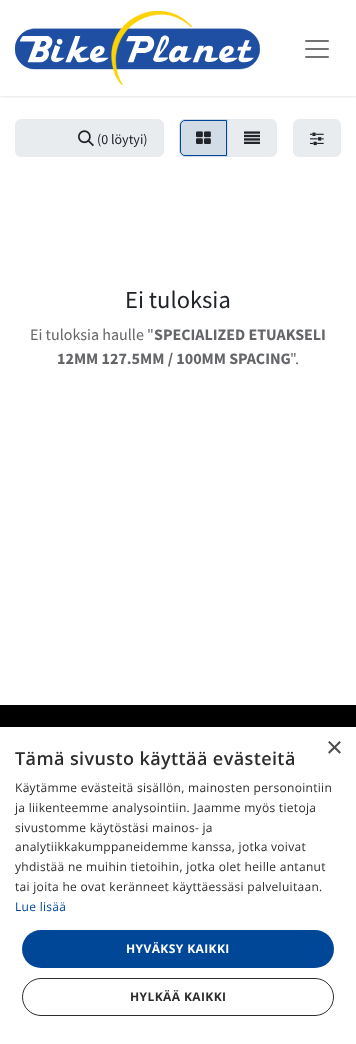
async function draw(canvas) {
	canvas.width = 356;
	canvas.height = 1044;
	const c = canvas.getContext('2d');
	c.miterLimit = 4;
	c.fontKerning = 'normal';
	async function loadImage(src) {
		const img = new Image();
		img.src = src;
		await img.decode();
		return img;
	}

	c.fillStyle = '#fff';
	c.fillRect(0, 0, 356, 1044);
	c.save();
	c.beginPath();
	c.rect(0, 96, 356, 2);
	c.clip();
	c.fillStyle = '#0000001a';
	c.filter = 'blur(1.5px)';
	c.beginPath();
	c.rect(0, 1, 356, 96);
	c.fill();
	c.filter = 'none';
	c.restore();
	c.drawImage(await loadImage('img1.png'), 15, 11, 245, 74);
	c.drawImage(await loadImage('img2.png'), 305, 40, 24, 18);
	c.fillStyle = '#e9ecef';
	c.beginPath();
	c.roundRect(15, 119, 47, 38, [6, 0, 0, 6]);
	c.fill();
	c.beginPath();
	c.roundRect(61.5, 119.5, 102, 37, [0, 5.5, 5.5, 0]);
	c.fill();
	c.strokeStyle = '#e9ecef';
	c.stroke();
	c.drawImage(await loadImage('img3.png'), 78, 130, 16, 17);
	c.font = '14px Source Sans Pro';
	c.fillStyle = '#212529';
	c.fillText('(0 löytyi)', 97, 144);
	c.fillStyle = '#e9ecef';
	c.beginPath();
	c.roundRect(227.5, 119.5, 49, 37, [0, 5.5, 5.5, 0]);
	c.fill();
	c.stroke();
	c.fillStyle = '#d2dce6';
	c.beginPath();
	c.roundRect(179, 119, 49, 38, [6, 0, 0, 6]);
	c.fill();
	c.beginPath();
	c.roundRect(180.5, 120.5, 46, 35, [4.5, 0, 0, 4.5]);
	c.strokeStyle = '#004798';
	c.stroke();
	c.drawImage(await loadImage('img4.png'), 196, 131, 15, 13);
	c.drawImage(await loadImage('img5.png'), 244, 131, 16, 13);
	c.fillStyle = '#e9ecef';
	c.beginPath();
	c.roundRect(293.5, 119.5, 47, 37, 5.5);
	c.fill();
	c.strokeStyle = '#e9ecef';
	c.stroke();
	c.drawImage(await loadImage('img6.png'), 310, 132, 14, 14);
	c.font = '24.5px Source Sans Pro';
	c.fillStyle = '#212529';
	c.fillText('Ei tuloksia', 125, 308);
	c.font = '16px Source Sans Pro';
	c.fillStyle = '#646669';
	c.fillText('Ei tuloksia haulle "', 30, 340);
	c.font = 'bold 16px Source Sans Pro';
	c.fillText('SPECIALIZED ETUAKSELI', 154, 340);
	c.fillText('12MM 127.5MM / 100MM SPACING', 57, 364);
	c.font = '16px Source Sans Pro';
	c.fillText('".', 290, 364);
	c.fillStyle = '#000';
	c.fillRect(0, 705, 356, 22);
	c.font = '29px Liberation Sans';
	c.fillStyle = '#4d4d4d';
	c.fillText('×', 326, 757);
	c.letterSpacing = '0.4px';
	c.font = '600 18px Open Sans';
	c.fillStyle = '#2d2d2d';
	c.fillText('Tämä sivusto käyttää evästeitä', 15, 765);
	c.letterSpacing = '0.3px';
	c.font = '12px Open Sans';
	for (const [text, x, y] of [
		['Käytämme evästeitä sisällön, mainosten personointiin', 15, 792],
		['ja liikenteemme analysointiin. Jaamme myös tietoja', 15, 812],
		['sivustomme käytöstäsi mainos- ja', 15, 832],
		['analytiikkakumppaneidemme kanssa, jotka voivat', 15, 851],
		['yhdistää ne muihin tietoihin, jotka olet heille antanut', 15, 871],
		['tai joita he ovat keränneet käyttäessäsi palveluitaan.', 15, 891],
	]) {
		c.fillText(text, x, y);
	}
	c.fillStyle = '#004798';
	c.fillText('Lue lisää', 15, 911);
	c.beginPath();
	c.roundRect(22, 930, 312, 38, 19);
	c.fill();
	c.letterSpacing = '0.4px';
	c.font = 'bold 12px Open Sans';
	c.fillStyle = '#fff';
	c.fillText('HYVÄKSY KAIKKI', 126, 953);
	c.beginPath();
	c.roundRect(22.5, 978.5, 311, 37, 18.5);
	c.strokeStyle = '#2d2d2d';
	c.stroke();
	c.fillStyle = '#2d2d2d';
	c.fillText('HYLKÄÄ KAIKKI', 130, 1001);
}

draw(document.querySelector('canvas'));
